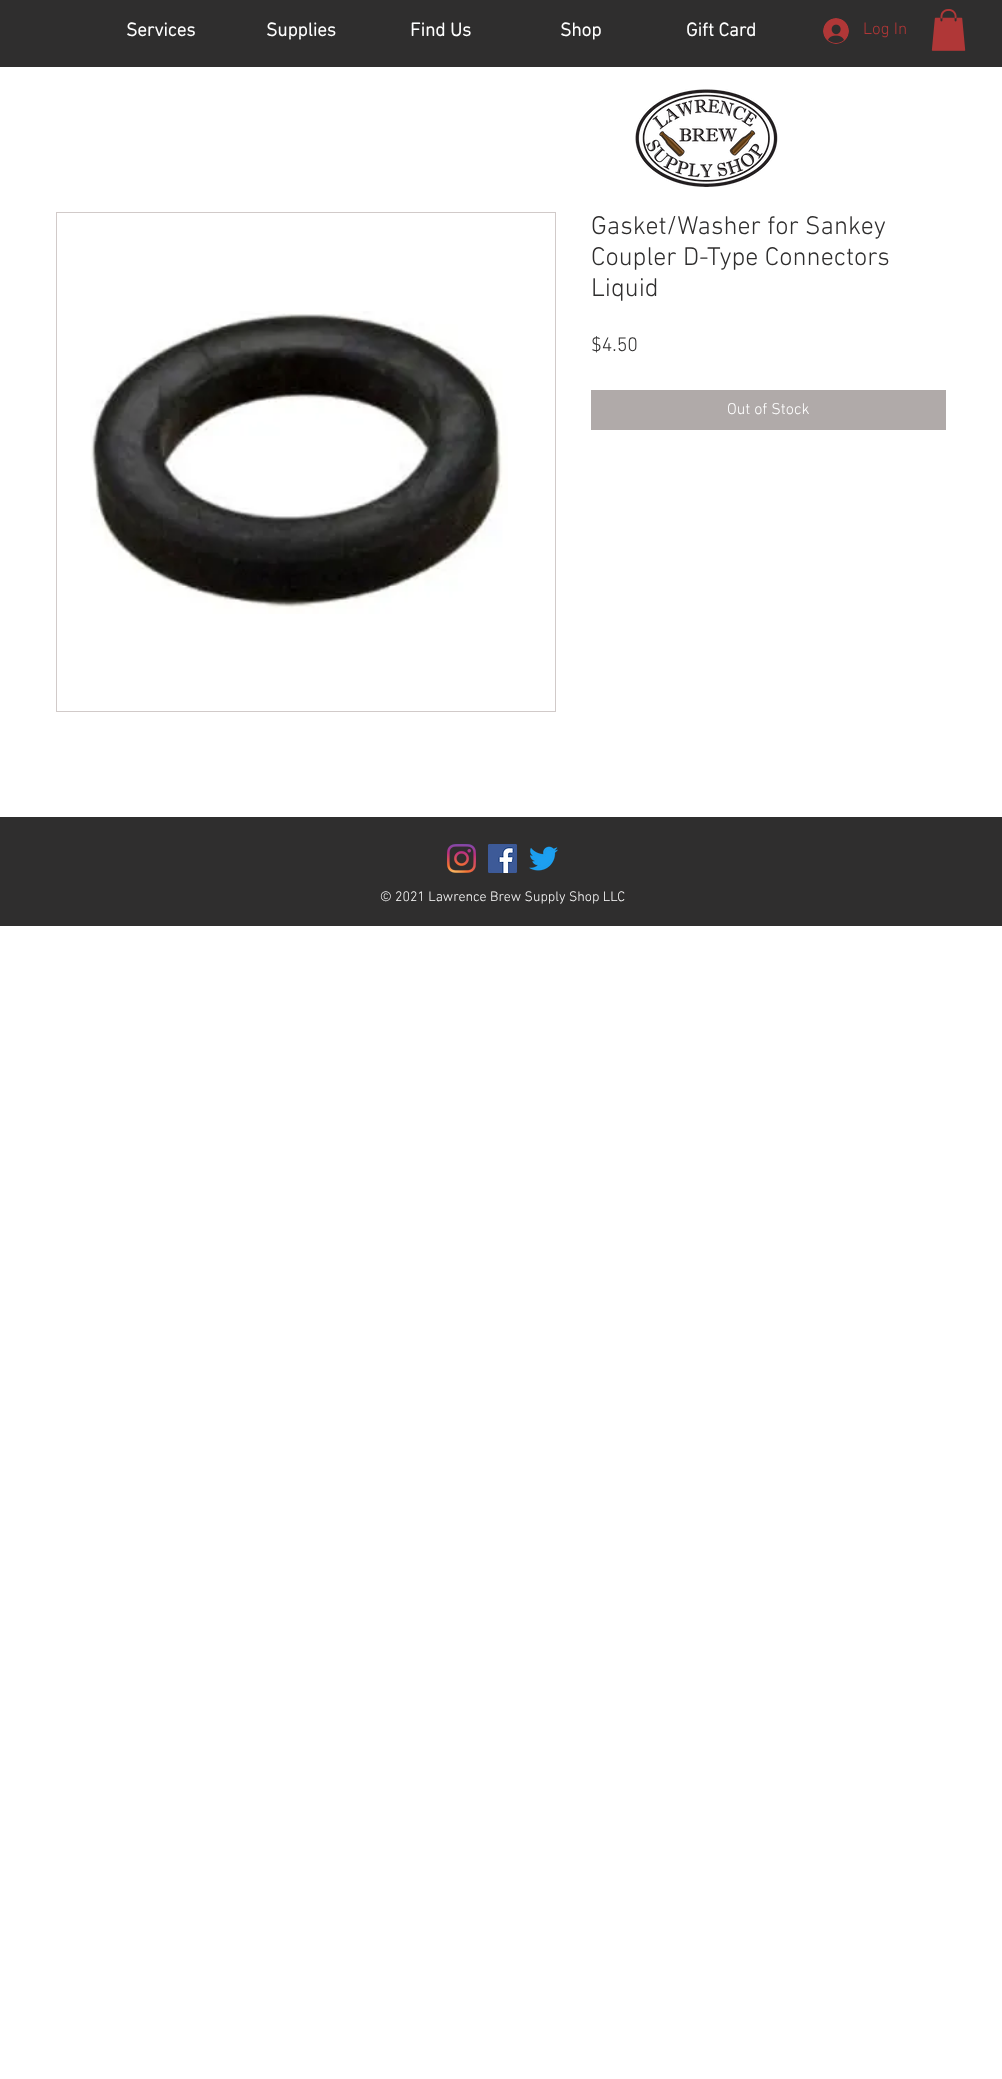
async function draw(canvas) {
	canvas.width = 1002;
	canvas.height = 2079;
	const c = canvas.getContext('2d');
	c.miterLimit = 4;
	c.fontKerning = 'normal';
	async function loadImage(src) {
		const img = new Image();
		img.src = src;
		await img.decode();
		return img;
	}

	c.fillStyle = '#fff';
	c.fillRect(0, 0, 1002, 2079);
	c.fillStyle = '#2f2e2e';
	c.fillRect(0, 0, 1002, 67);
	c.font = 'bold 19px "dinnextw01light"';
	c.fillStyle = '#fff';
	for (const [text, x, y] of [
		['Services', 126, 36],
		['Supplies', 266, 36],
		['Find Us', 410, 36],
		['Shop', 560, 36],
		['Gift Card', 686, 36],
	]) {
		c.fillText(text, x, y);
	}
	c.drawImage(await loadImage('img1.png'), 823, 18, 26, 26);
	c.font = '300 17px "dinnextw01light"';
	c.fillStyle = '#b03737';
	c.fillText('Log In', 863, 34);
	c.drawImage(await loadImage('img2.png'), 931, 9, 35, 42);
	c.drawImage(await loadImage('img3.png'), 635, 89, 143, 98);
	c.strokeStyle = '#d1cac9';
	c.strokeRect(56.5, 212.5, 499, 499);
	c.drawImage(await loadImage('img4.png'), 90, 311, 418, 303);
	c.font = '300 26px "dinnextw01light"';
	c.fillStyle = '#2f2e2e';
	for (const [text, x, y] of [
		['Gasket/Washer for Sankey', 591, 234],
		['Coupler D-Type Connectors', 591, 265],
		['Liquid', 591, 296],
	]) {
		c.fillText(text, x, y);
	}
	c.font = '300 20px "dinnextw01light"';
	c.fillText('$4.50', 591, 351);
	c.fillStyle = '#b0aaa9';
	c.fillRect(591, 390, 355, 40);
	c.font = '300 16px "dinnextw01light"';
	c.fillStyle = '#fff';
	c.fillText('Out of Stock', 727, 414);
	c.fillStyle = '#2f2e2e';
	c.fillRect(0, 817, 1002, 109);
	c.drawImage(await loadImage('img5.png'), 447, 844, 29, 29);
	c.drawImage(await loadImage('img6.png'), 488, 844, 29, 29);
	c.drawImage(await loadImage('img7.png'), 529, 846, 29, 25);
	c.font = '300 14px "dinnextw01light"';
	c.fillStyle = '#fff';
	c.fillText('© 2021 Lawrence Brew Supply Shop LLC', 380, 901);
}

draw(document.querySelector('canvas'));
